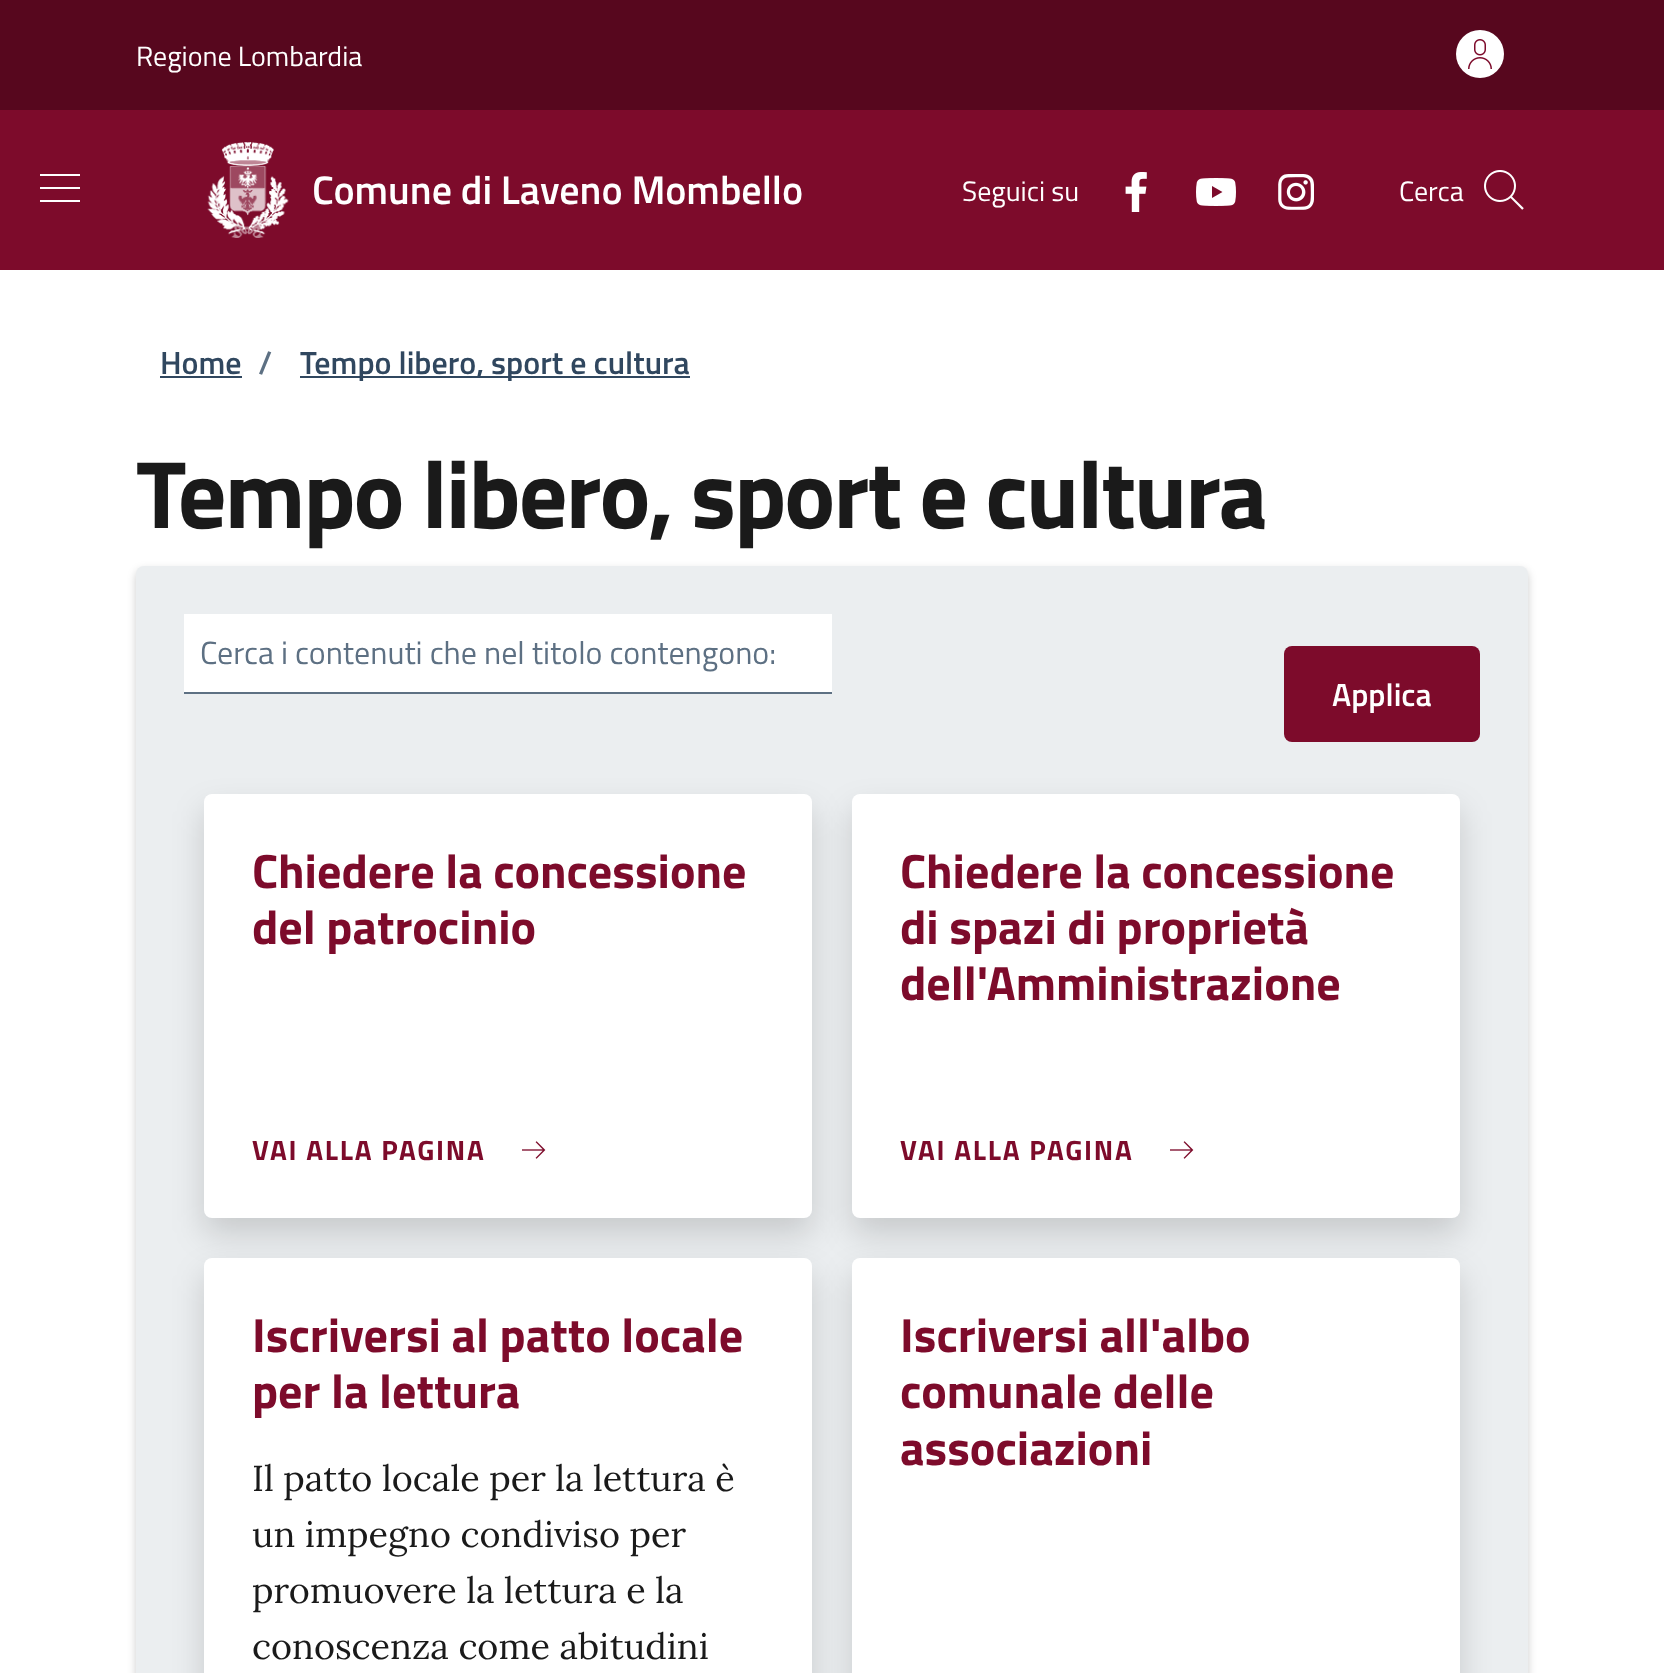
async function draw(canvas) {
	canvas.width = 1664;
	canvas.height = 1673;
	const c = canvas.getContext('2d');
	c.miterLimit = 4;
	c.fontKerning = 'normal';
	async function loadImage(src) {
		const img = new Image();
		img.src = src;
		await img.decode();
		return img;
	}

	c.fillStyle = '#fff';
	c.fillRect(0, 0, 1664, 1673);
	c.fillStyle = '#57071e';
	c.fillRect(0, 0, 1664, 110);
	c.font = '28px Titillium Web';
	c.fillStyle = '#fff';
	c.fillText('Regione Lombardia', 136, 66);
	c.beginPath();
	c.arc(1480, 54, 24, 0, 2 * Math.PI);
	c.fill();
	c.drawImage(await loadImage('img1.png'), 1468, 39, 24, 30);
	c.fillStyle = '#7d0b2b';
	c.fillRect(0, 110, 1664, 160);
	c.fillStyle = '#fff';
	c.beginPath();
	c.moveTo(80, 174);
	c.lineTo(80, 176);
	c.lineTo(40, 176);
	c.lineTo(40, 174);
	c.closePath();
	c.moveTo(40, 189);
	c.lineTo(80, 189);
	c.lineTo(80, 187);
	c.lineTo(40, 187);
	c.closePath();
	c.moveTo(40, 202);
	c.lineTo(80, 202);
	c.lineTo(80, 200);
	c.lineTo(40, 200);
	c.closePath();
	c.fill();
	c.drawImage(await loadImage('img2.png'), 207, 142, 82, 96);
	c.font = '600 40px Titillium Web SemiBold';
	c.fillText('Comune di Laveno Mombello', 312, 204);
	c.font = '28px Titillium Web';
	c.fillText('Seguici su', 962, 201);
	c.drawImage(await loadImage('img3.png'), 1125, 172, 22, 40);
	c.drawImage(await loadImage('img4.png'), 1196, 178, 40, 28);
	c.drawImage(await loadImage('img5.png'), 1278, 174, 36, 36);
	c.fillText('Cerca', 1399, 201);
	c.drawImage(await loadImage('img6.png'), 1484, 170, 40, 40);
	c.font = '600 32px Titillium Web SemiBold';
	c.fillStyle = '#30475f';
	c.fillText('Home', 160, 374);
	c.fillRect(160, 376, 82, 2);
	c.fillStyle = '#5d7083';
	c.fillText('/', 258, 374);
	c.fillStyle = '#30475f';
	c.fillRect(300, 376, 390, 2);
	c.fillText('Tempo libero, sport e cultura', 300, 374);
	c.letterSpacing = '-2px';
	c.font = 'bold 96px Titillium Web';
	c.fillStyle = '#1a1a1a';
	c.fillText('Tempo libero, sport e cultura', 136, 528);
	c.fillStyle = '#00000033';
	c.filter = 'blur(4px)';
	c.beginPath();
	c.roundRect(136, 570, 1392, 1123, 8);
	c.fill();
	c.filter = 'none';
	c.fillStyle = '#ebeef0';
	c.beginPath();
	c.roundRect(136, 566, 1392, 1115, 8);
	c.fill();
	c.fillStyle = '#fff';
	c.fillRect(184, 614, 648, 78);
	c.fillStyle = '#5d7083';
	c.fillRect(184, 692, 648, 2);
	c.letterSpacing = '0px';
	c.font = '32px Titillium Web';
	c.fillText('Cerca i contenuti che nel titolo contengono:', 200, 664);
	c.fillStyle = '#7d0b2b';
	c.beginPath();
	c.roundRect(1284, 646, 196, 96, 8);
	c.fill();
	c.font = '600 32px Titillium Web SemiBold';
	c.fillStyle = '#fff';
	c.fillText('Applica', 1332, 706);
	c.fillStyle = '#00000026';
	c.filter = 'blur(16px)';
	c.beginPath();
	c.roundRect(204, 810, 608, 424, 8);
	c.fill();
	c.filter = 'none';
	c.fillStyle = '#fff';
	c.beginPath();
	c.roundRect(204, 794, 608, 424, 8);
	c.fill();
	c.font = 'bold 48px Titillium Web';
	c.fillStyle = '#7d0b2b';
	c.fillText('Chiedere la concessione', 252, 888);
	c.fillText('del patrocinio', 252, 944);
	c.letterSpacing = '1.75px';
	c.font = 'bold 28px Titillium Web';
	c.fillText('VAI ALLA PAGINA', 252, 1160);
	c.drawImage(await loadImage('img7.png'), 522, 1141, 24, 18);
	c.fillStyle = '#00000026';
	c.filter = 'blur(16px)';
	c.beginPath();
	c.roundRect(852, 810, 608, 424, 8);
	c.fill();
	c.filter = 'none';
	c.fillStyle = '#fff';
	c.beginPath();
	c.roundRect(852, 794, 608, 424, 8);
	c.fill();
	c.letterSpacing = '0px';
	c.font = 'bold 48px Titillium Web';
	c.fillStyle = '#7d0b2b';
	for (const [text, x, y] of [
		['Chiedere la concessione', 900, 888],
		['di spazi di proprietà', 900, 944],
		['dell\'Amministrazione', 900, 1000],
	]) {
		c.fillText(text, x, y);
	}
	c.letterSpacing = '1.75px';
	c.font = 'bold 28px Titillium Web';
	c.fillText('VAI ALLA PAGINA', 900, 1160);
	c.drawImage(await loadImage('img7.png'), 1170, 1141, 24, 18);
	c.fillStyle = '#00000026';
	c.filter = 'blur(16px)';
	c.beginPath();
	c.roundRect(204, 1274, 608, 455, 8);
	c.fill();
	c.filter = 'none';
	c.fillStyle = '#fff';
	c.beginPath();
	c.roundRect(204, 1258, 608, 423, 8);
	c.fill();
	c.letterSpacing = '0px';
	c.font = 'bold 48px Titillium Web';
	c.fillStyle = '#7d0b2b';
	c.fillText('Iscriversi al patto locale', 252, 1352);
	c.fillText('per la lettura', 252, 1408);
	c.font = '36px Lora';
	c.fillStyle = '#1a1a1a';
	for (const [text, x, y] of [
		['Il patto locale per la lettura è', 252, 1491],
		['un impegno condiviso per', 252, 1547],
		['promuovere la lettura e la', 252, 1603],
		['conoscenza come abitudini', 252, 1659],
	]) {
		c.fillText(text, x, y);
	}
	c.fillStyle = '#00000026';
	c.filter = 'blur(16px)';
	c.beginPath();
	c.roundRect(852, 1274, 608, 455, 8);
	c.fill();
	c.filter = 'none';
	c.fillStyle = '#fff';
	c.beginPath();
	c.roundRect(852, 1258, 608, 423, 8);
	c.fill();
	c.font = 'bold 48px Titillium Web';
	c.fillStyle = '#7d0b2b';
	for (const [text, x, y] of [
		['Iscriversi all\'albo', 900, 1352],
		['comunale delle', 900, 1408],
		['associazioni', 900, 1465],
	]) {
		c.fillText(text, x, y);
	}
}

draw(document.querySelector('canvas'));
